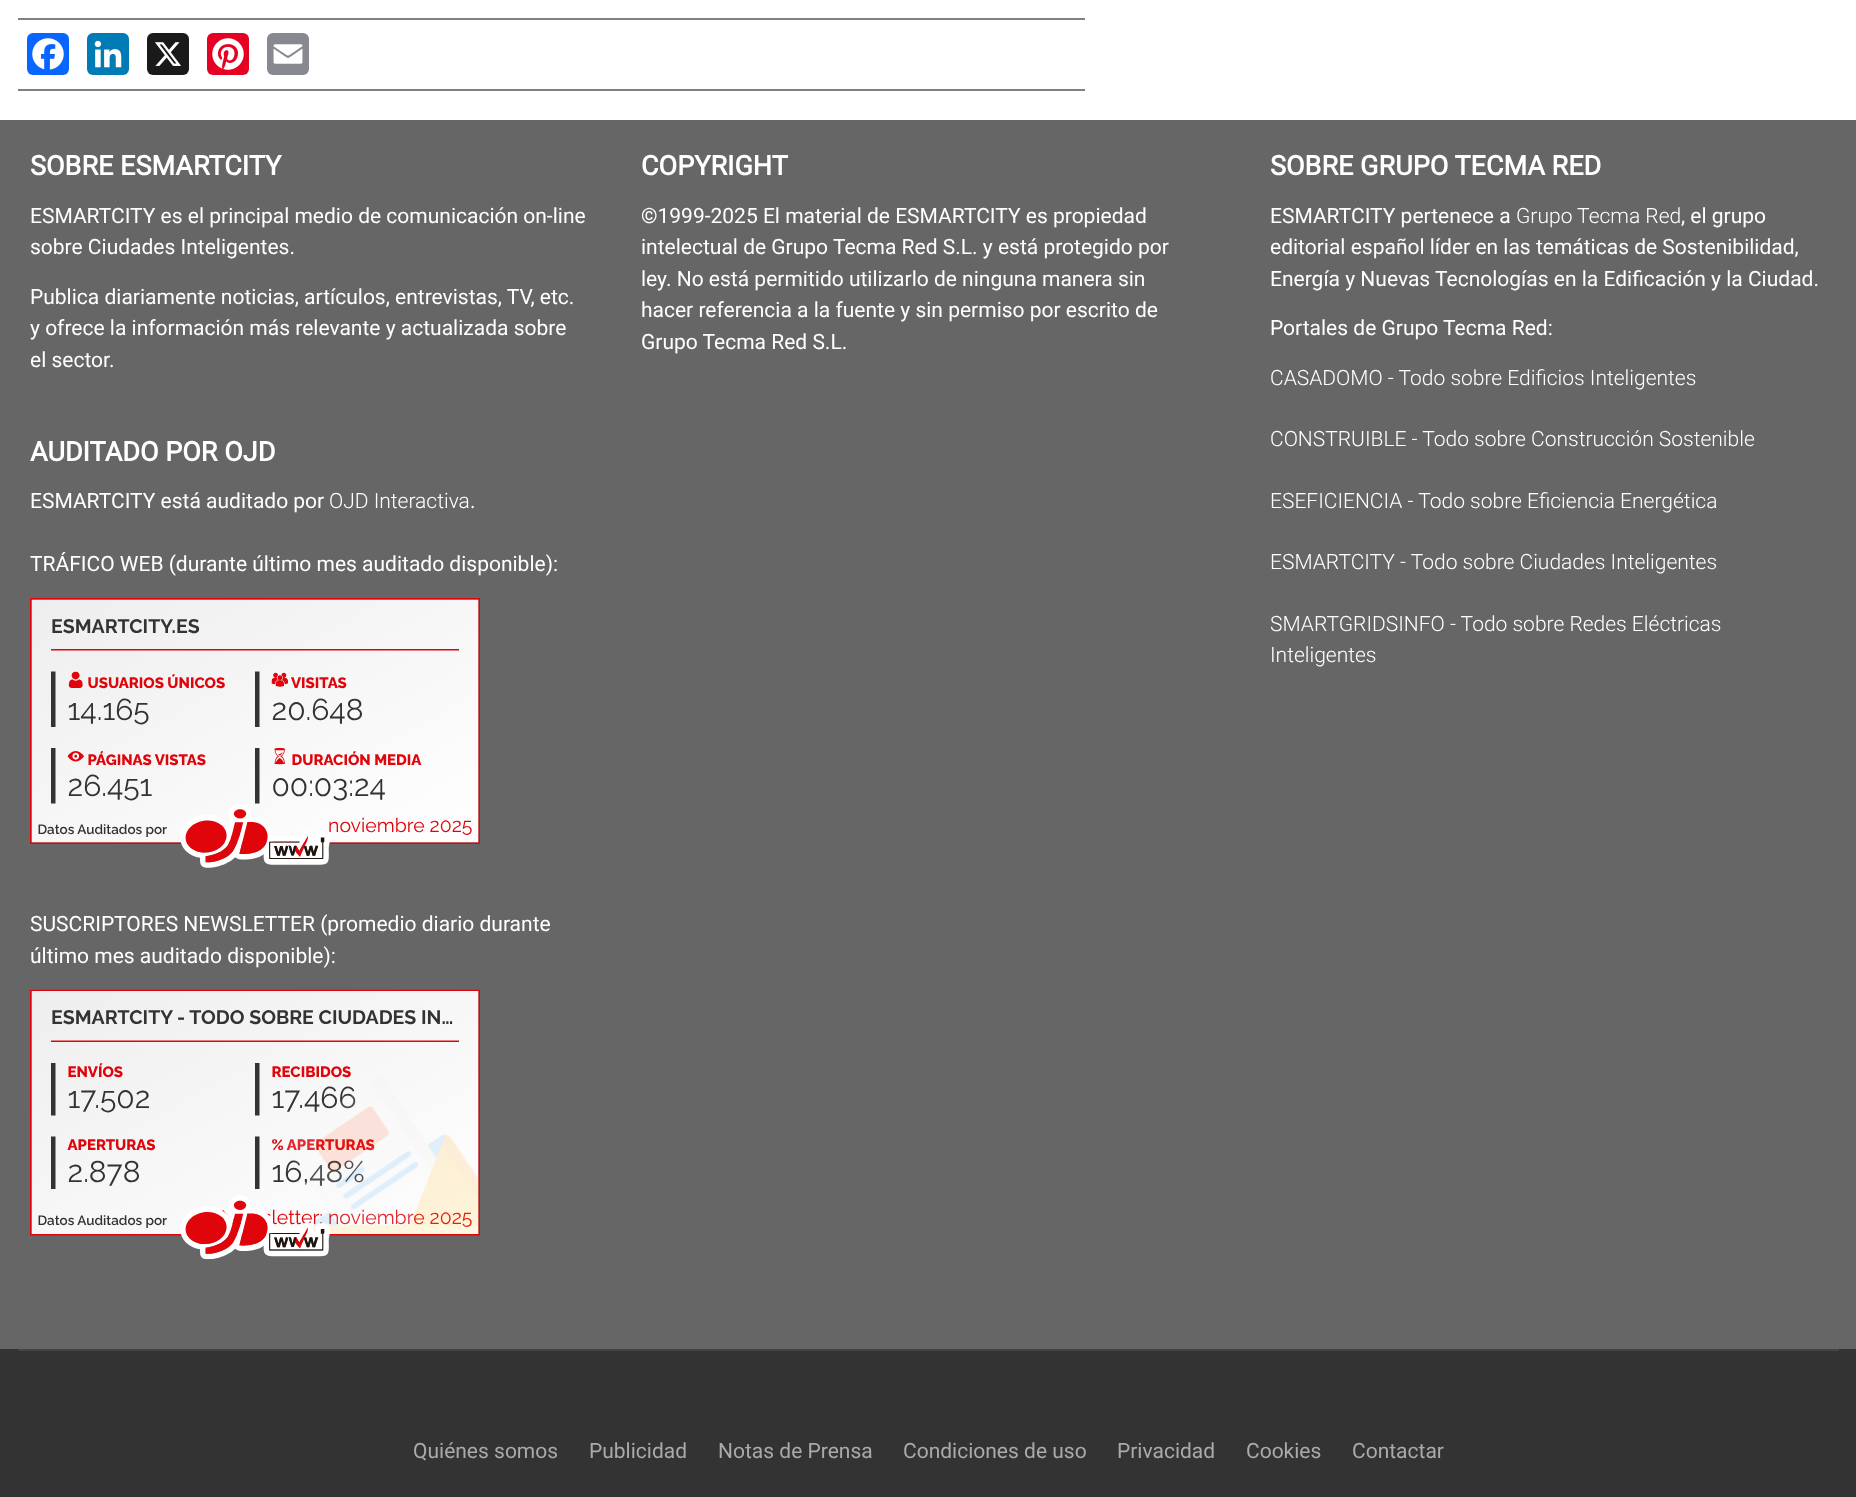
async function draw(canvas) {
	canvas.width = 1856;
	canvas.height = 1497;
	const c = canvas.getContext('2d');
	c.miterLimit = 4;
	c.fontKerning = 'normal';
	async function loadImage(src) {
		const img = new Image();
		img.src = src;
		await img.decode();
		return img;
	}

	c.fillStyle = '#fff';
	c.fillRect(0, 0, 1856, 1497);
	c.fillStyle = '#808080';
	c.fillRect(18, 18, 1067, 2);
	c.fillRect(18, 89, 1067, 2);
	c.fillStyle = '#0866ff';
	c.beginPath();
	c.roundRect(27, 33, 42, 42, 6);
	c.fill();
	c.drawImage(await loadImage('img1.png'), 32, 38, 32, 32);
	c.fillStyle = '#007bb5';
	c.beginPath();
	c.roundRect(87, 33, 42, 42, 6);
	c.fill();
	c.drawImage(await loadImage('img2.png'), 94, 40, 28, 28);
	c.fillStyle = '#1a1a1a';
	c.beginPath();
	c.roundRect(147, 33, 42, 42, 6);
	c.fill();
	c.drawImage(await loadImage('img3.png'), 155, 42, 26, 24);
	c.fillStyle = '#e60023';
	c.beginPath();
	c.roundRect(207, 33, 42, 42, 6);
	c.fill();
	c.drawImage(await loadImage('img4.png'), 212, 38, 32, 32);
	c.fillStyle = '#888990';
	c.beginPath();
	c.roundRect(267, 33, 42, 42, 6);
	c.fill();
	c.drawImage(await loadImage('img5.png'), 273, 44, 30, 20);
	c.fillStyle = '#666';
	c.fillRect(0, 120, 1856, 1229);
	c.font = 'bold 27px Roboto';
	c.fillStyle = '#fff';
	c.fillText('SOBRE ESMARTCITY', 30, 175);
	c.font = '21px Roboto';
	for (const [text, x, y] of [
		['ESMARTCITY es el principal medio de comunicación on-line', 30, 223],
		['sobre Ciudades Inteligentes.', 30, 254],
		['Publica diariamente noticias, artículos, entrevistas, TV, etc.', 30, 304],
		['y ofrece la información más relevante y actualizada sobre', 30, 335],
		['el sector.', 30, 367],
	]) {
		c.fillText(text, x, y);
	}
	c.font = 'bold 27px Roboto';
	c.fillText('AUDITADO POR OJD', 30, 461);
	c.font = '21px Roboto';
	c.fillText('ESMARTCITY está auditado por', 30, 508);
	c.font = '300 21px Roboto';
	c.fillText('OJD Interactiva', 329, 508);
	c.font = '21px Roboto';
	c.fillText('.', 470, 508);
	c.fillText('TRÁFICO WEB (durante último mes auditado disponible):', 30, 571);
	c.drawImage(await loadImage('img6.png'), 30, 598, 450, 270);
	c.fillText('SUSCRIPTORES NEWSLETTER (promedio diario durante', 30, 931);
	c.fillText('último mes auditado disponible):', 30, 963);
	c.drawImage(await loadImage('img7.png'), 30, 989, 450, 271);
	c.font = 'bold 27px Roboto';
	c.fillText('COPYRIGHT', 641, 175);
	c.font = '21px Roboto';
	for (const [text, x, y] of [
		['©1999-2025 El material de ESMARTCITY es propiedad', 641, 223],
		['intelectual de Grupo Tecma Red S.L. y está protegido por', 641, 254],
		['ley. No está permitido utilizarlo de ninguna manera sin', 641, 286],
		['hacer referencia a la fuente y sin permiso por escrito de', 641, 317],
		['Grupo Tecma Red S.L.', 641, 349],
	]) {
		c.fillText(text, x, y);
	}
	c.font = 'bold 27px Roboto';
	c.fillText('SOBRE GRUPO TECMA RED', 1270, 175);
	c.font = '21px Roboto';
	c.fillText('ESMARTCITY pertenece a', 1270, 223);
	c.font = '300 21px Roboto';
	c.fillText('Grupo Tecma Red', 1516, 223);
	c.font = '21px Roboto';
	for (const [text, x, y] of [
		[', el grupo', 1681, 223],
		['editorial español líder en las temáticas de Sostenibilidad,', 1270, 254],
		['Energía y Nuevas Tecnologías en la Edificación y la Ciudad.', 1270, 286],
		['Portales de Grupo Tecma Red:', 1270, 335],
	]) {
		c.fillText(text, x, y);
	}
	c.font = '300 21px Roboto';
	for (const [text, x, y] of [
		['CASADOMO - Todo sobre Edificios Inteligentes', 1270, 385],
		['CONSTRUIBLE - Todo sobre Construcción Sostenible', 1270, 446],
		['ESEFICIENCIA - Todo sobre Eficiencia Energética', 1270, 508],
		['ESMARTCITY - Todo sobre Ciudades Inteligentes', 1270, 569],
		['SMARTGRIDSINFO - Todo sobre Redes Eléctricas', 1270, 631],
		['Inteligentes', 1270, 662],
	]) {
		c.fillText(text, x, y);
	}
	c.fillStyle = '#333';
	c.fillRect(0, 1349, 1856, 148);
	c.fillStyle = '#444';
	c.fillRect(18, 1349, 1821, 2);
	c.font = '21px Roboto';
	c.fillStyle = '#aaa';
	for (const [text, x, y] of [
		['Quiénes somos', 413, 1458],
		['Publicidad', 589, 1458],
		['Notas de Prensa', 718, 1458],
		['Condiciones de uso', 903, 1458],
		['Privacidad', 1117, 1458],
		['Cookies', 1246, 1458],
		['Contactar', 1352, 1458],
	]) {
		c.fillText(text, x, y);
	}
}

draw(document.querySelector('canvas'));
